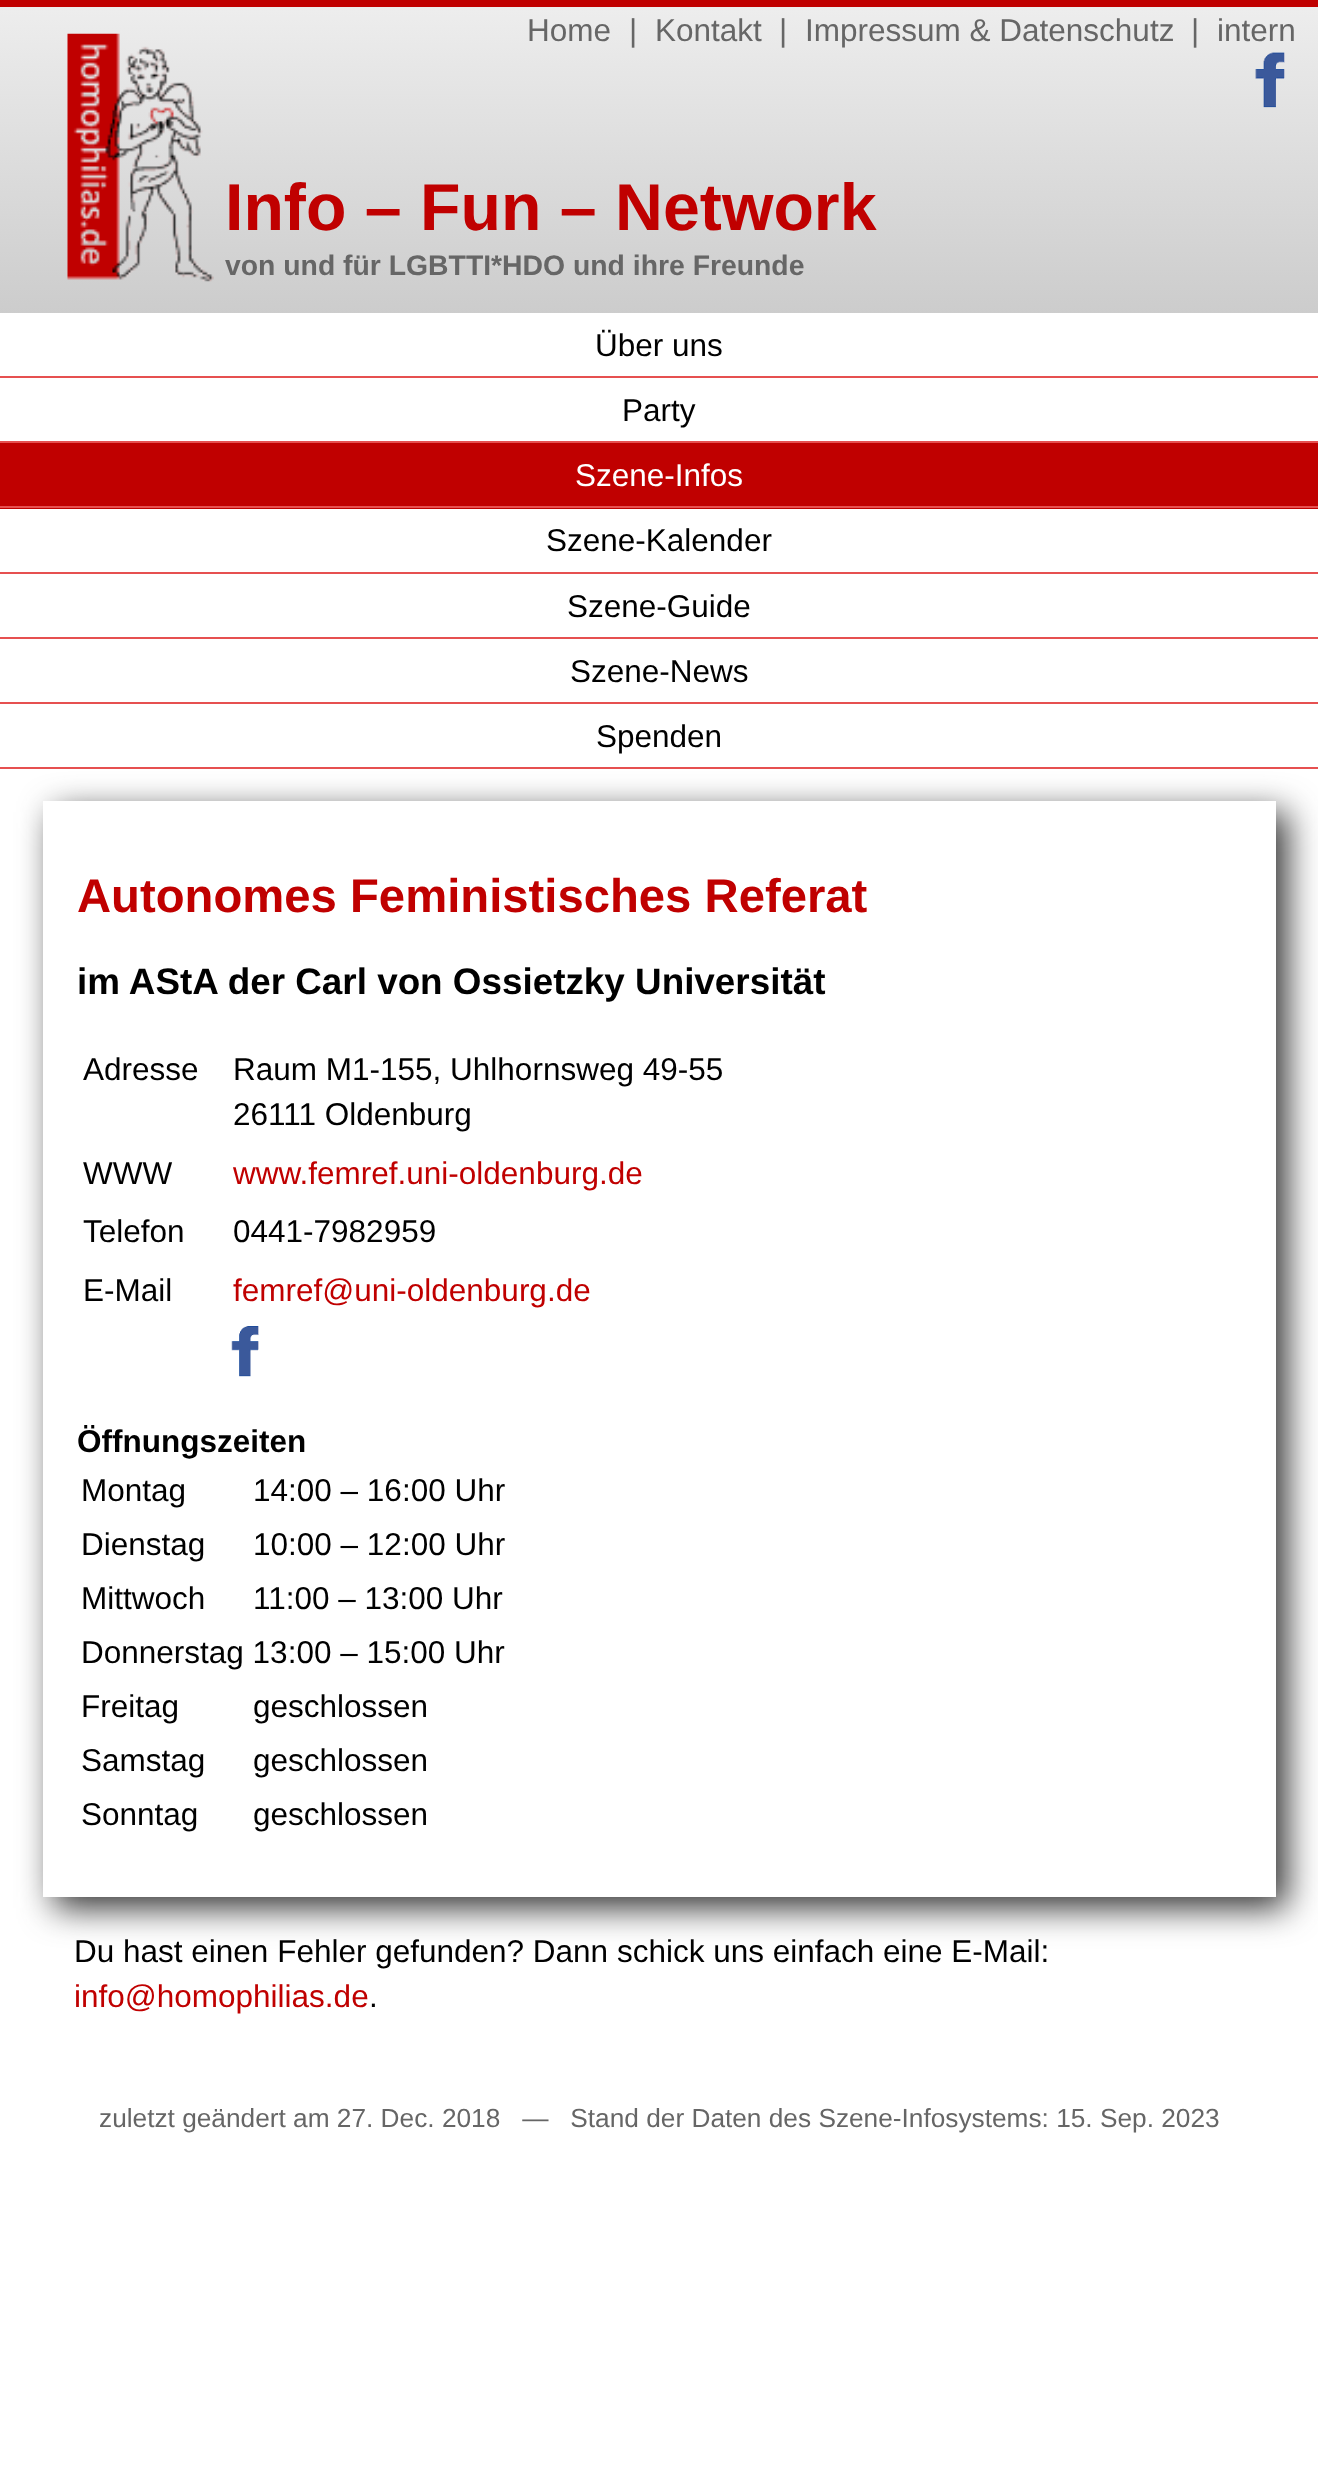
async function draw(canvas) {
	canvas.width = 1318;
	canvas.height = 2492;
	const c = canvas.getContext('2d');
	c.miterLimit = 4;
	c.fontKerning = 'normal';
	async function loadImage(src) {
		const img = new Image();
		img.src = src;
		await img.decode();
		return img;
	}
	let gradient;

	c.fillStyle = '#fff';
	c.fillRect(0, 0, 1318, 2492);
	gradient = c.createLinearGradient(659, 0, 659, 315);
	gradient.addColorStop(0, '#eee');
	gradient.addColorStop(1, '#ccc');
	c.fillStyle = gradient;
	c.fillRect(0, 7, 1318, 306);
	c.fillStyle = '#c00000';
	c.fillRect(0, 0, 1318, 7);
	c.font = '31.5px Liberation Sans';
	c.fillStyle = '#666';
	for (const [text, x, y] of [
		['Home', 527, 41],
		['|', 629, 41],
		['Kontakt', 655, 41],
		['|', 779, 41],
		['Impressum & Datenschutz', 805, 41],
		['|', 1191, 41],
		['intern', 1217, 41],
	]) {
		c.fillText(text, x, y);
	}
	c.drawImage(await loadImage('img1.png'), 1255, 52, 30, 56);
	c.drawImage(await loadImage('img2.png'), 67, 33, 147, 249);
	c.font = 'bold 66.25px Liberation Sans';
	c.fillStyle = '#c00000';
	c.fillText('Info – Fun – Network', 225, 230);
	c.font = 'bold 28.35px Liberation Sans';
	c.fillStyle = '#666';
	c.fillText('von und für LGBTTI*HDO und ihre Freunde', 225, 275);
	c.fillStyle = '#e65050';
	c.fillRect(0, 376, 1318, 2);
	c.font = '31.5px Liberation Sans';
	c.fillStyle = '#000';
	c.fillText('Über uns', 595, 356);
	c.fillStyle = '#e65050';
	c.fillRect(0, 441, 1318, 2);
	c.fillStyle = '#000';
	c.fillText('Party', 622, 421);
	c.fillStyle = '#c00000';
	c.fillRect(0, 443, 1318, 66);
	c.fillStyle = '#e65050';
	c.fillRect(0, 506, 1318, 2);
	c.fillStyle = '#fff';
	c.fillText('Szene-Infos', 575, 486);
	c.fillStyle = '#e65050';
	c.fillRect(0, 572, 1318, 2);
	c.fillStyle = '#000';
	c.fillText('Szene-Kalender', 546, 551);
	c.fillStyle = '#e65050';
	c.fillRect(0, 637, 1318, 2);
	c.fillStyle = '#000';
	c.fillText('Szene-Guide', 567, 617);
	c.fillStyle = '#e65050';
	c.fillRect(0, 702, 1318, 2);
	c.fillStyle = '#000';
	c.fillText('Szene-News', 570, 682);
	c.save();
	c.beginPath();
	c.moveTo(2, 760);
	c.lineTo(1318, 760);
	c.lineTo(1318, 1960);
	c.lineTo(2, 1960);
	c.closePath();
	c.moveTo(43, 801);
	c.lineTo(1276, 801);
	c.lineTo(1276, 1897);
	c.lineTo(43, 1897);
	c.closePath();
	c.clip('evenodd');
	c.fillStyle = '#323232';
	c.filter = 'blur(17px)';
	c.beginPath();
	c.rect(54, 812, 1233, 1096);
	c.fill();
	c.filter = 'none';
	c.restore();
	c.fillStyle = '#e65050';
	c.fillRect(0, 767, 1318, 2);
	c.fillStyle = '#000';
	c.fillText('Spenden', 596, 747);
	c.font = 'bold 47.25px Liberation Sans';
	c.fillStyle = '#c00000';
	c.fillText('Autonomes Feministisches Referat', 77, 912);
	c.font = 'bold 36.85px Liberation Sans';
	c.fillStyle = '#000';
	c.fillText('im AStA der Carl von Ossietzky Universität', 77, 994);
	c.font = '31.5px Liberation Sans';
	for (const [text, x, y] of [
		['Adresse', 83, 1080],
		['Raum M1-155, Uhlhornsweg 49-55', 233, 1080],
		['26111 Oldenburg', 233, 1125],
		['WWW', 83, 1184],
	]) {
		c.fillText(text, x, y);
	}
	c.fillStyle = '#c00000';
	c.fillText('www.femref.uni-oldenburg.de', 233, 1184);
	c.fillStyle = '#000';
	for (const [text, x, y] of [
		['Telefon', 83, 1242],
		['0441-7982959', 233, 1242],
		['E-Mail', 83, 1301],
	]) {
		c.fillText(text, x, y);
	}
	c.fillStyle = '#c00000';
	c.fillText('femref@uni-oldenburg.de', 233, 1301);
	c.drawImage(await loadImage('img3.png'), 231, 1326, 28, 51);
	c.font = 'bold 31.5px Liberation Sans';
	c.fillStyle = '#000';
	c.fillText('Öffnungszeiten', 77, 1452);
	c.font = '31.5px Liberation Sans';
	for (const [text, x, y] of [
		['Montag', 81, 1501],
		['14:00 – 16:00 Uhr', 253, 1501],
		['Dienstag', 81, 1555],
		['10:00 – 12:00 Uhr', 253, 1555],
		['Mittwoch', 81, 1609],
		['11:00 – 13:00 Uhr', 253, 1609],
		['Donnerstag 13:00 – 15:00 Uhr', 81, 1663],
		['Freitag', 81, 1717],
		['geschlossen', 253, 1717],
		['Samstag', 81, 1771],
		['geschlossen', 253, 1771],
		['Sonntag', 81, 1825],
		['geschlossen', 253, 1825],
		['Du hast einen Fehler gefunden? Dann schick uns einfach eine E-Mail:', 74, 1962],
	]) {
		c.fillText(text, x, y);
	}
	c.fillStyle = '#c00000';
	c.fillText('info@homophilias.de', 74, 2007);
	c.fillStyle = '#000';
	c.fillText('.', 369, 2007);
	c.font = '26.25px Liberation Sans';
	c.fillStyle = '#666';
	c.fillText('zuletzt geändert am 27. Dec. 2018   —   Stand der Daten des Szene-Infosystems: 15. Sep. 2023', 99, 2127);
}

draw(document.querySelector('canvas'));
